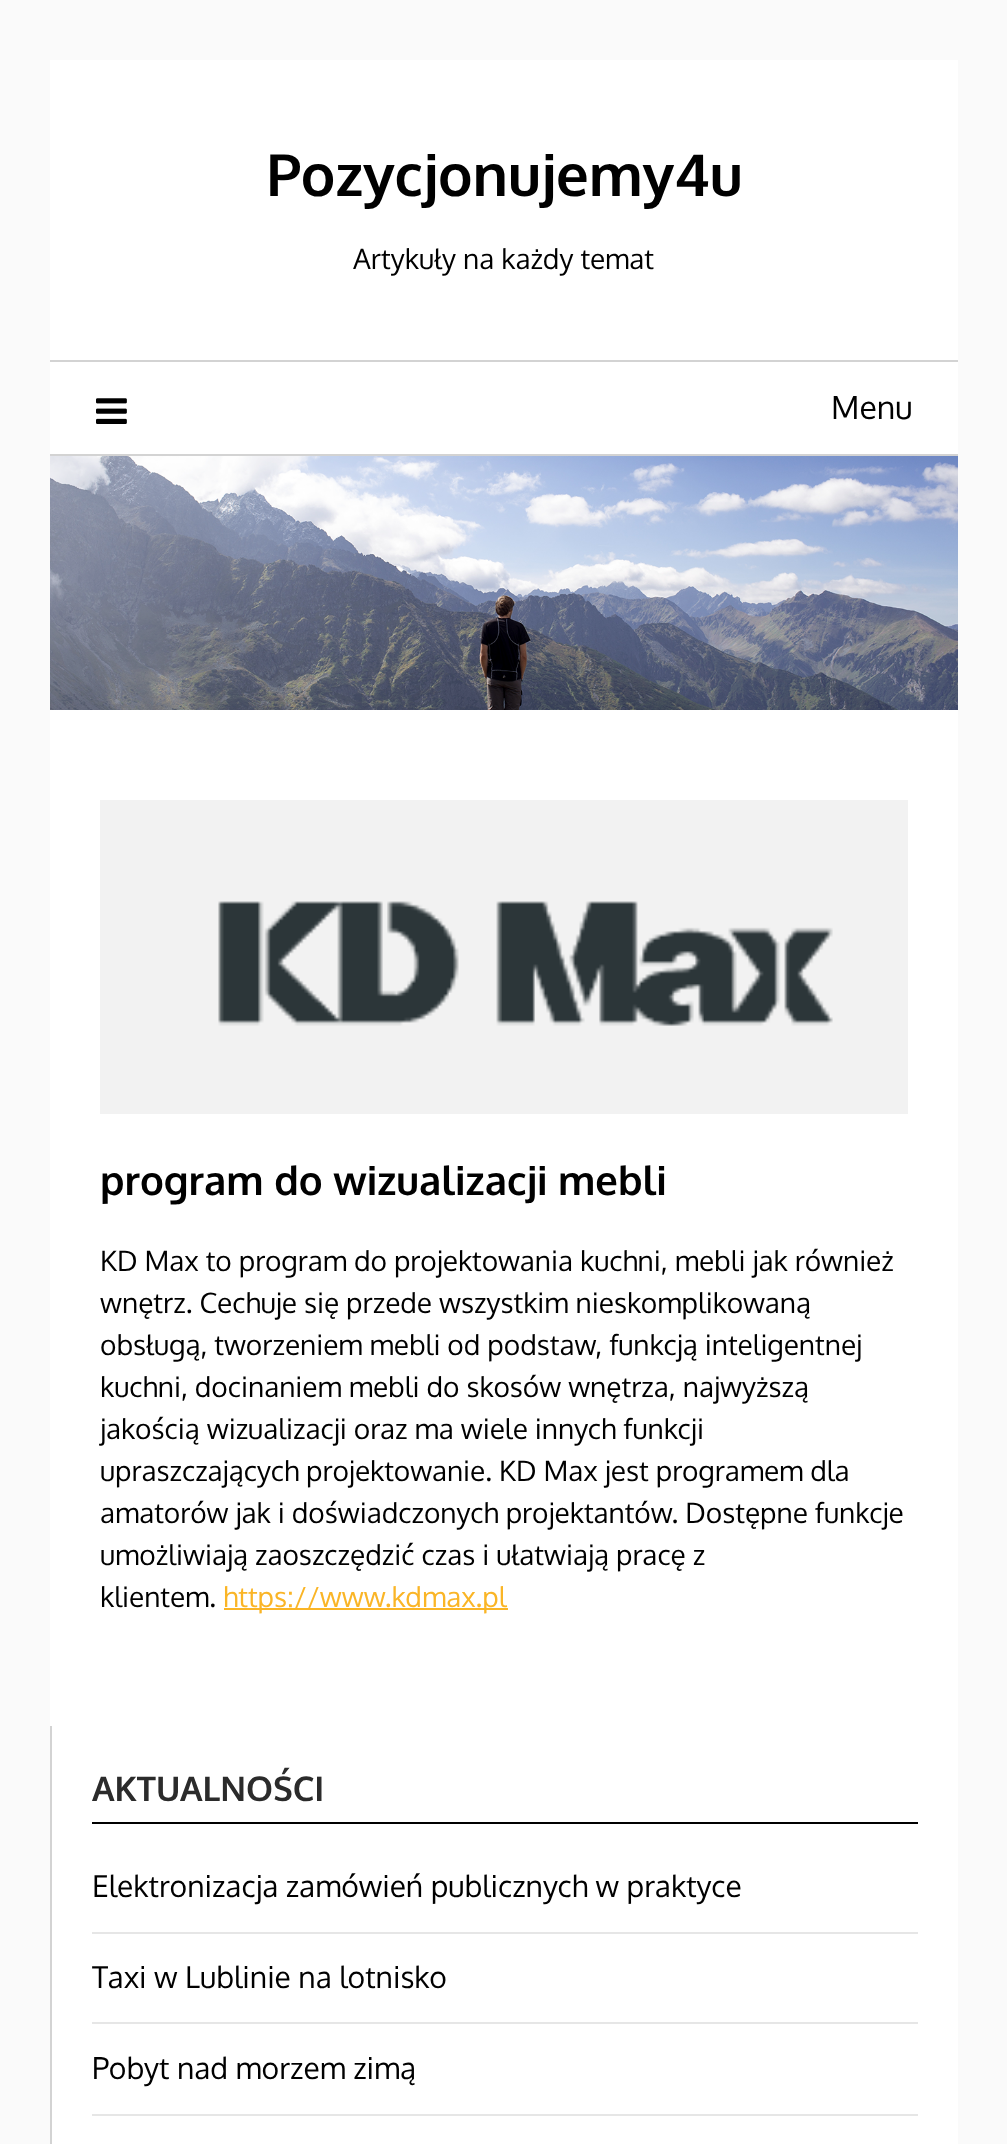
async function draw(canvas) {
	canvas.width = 1007;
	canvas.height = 2144;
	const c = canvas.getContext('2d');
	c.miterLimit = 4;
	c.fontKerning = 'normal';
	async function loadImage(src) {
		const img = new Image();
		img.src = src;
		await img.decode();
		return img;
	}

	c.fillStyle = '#fafafa';
	c.fillRect(0, 0, 1007, 2144);
	c.fillStyle = '#fff';
	c.fillRect(50, 60, 908, 300);
	c.font = 'bold 58px Oxygen';
	c.fillStyle = '#000';
	c.fillText('Pozycjonujemy4u', 266, 196);
	c.font = '28px Oxygen';
	c.fillText('Artykuły na każdy temat', 353, 269);
	for (const [x, y, w, h, color] of [
		[50, 362, 908, 92, '#fff'],
		[50, 360, 908, 2, '#d3d3d3'],
		[50, 454, 908, 2, '#d3d3d3'],
	]) {
		c.fillStyle = color;
		c.fillRect(x, y, w, h);
	}
	c.drawImage(await loadImage('img1.png'), 96, 398, 31, 26);
	c.font = '32px Oxygen';
	c.fillStyle = '#000';
	c.fillText('Menu', 831, 419);
	c.drawImage(await loadImage('img2.png'), 50, 456, 908, 254);
	c.fillStyle = '#fff';
	c.fillRect(50, 710, 908, 1434);
	c.drawImage(await loadImage('img3.png'), 100, 800, 808, 314);
	c.font = 'bold 40px Oxygen';
	c.fillStyle = '#000';
	c.fillText('program do wizualizacji mebli', 100, 1195);
	c.font = '28px Oxygen';
	for (const [text, x, y] of [
		['KD Max to program do projektowania kuchni, mebli jak również', 100, 1271],
		['wnętrz. Cechuje się przede wszystkim nieskomplikowaną', 100, 1313],
		['obsługą, tworzeniem mebli od podstaw, funkcją inteligentnej', 100, 1355],
		['kuchni, docinaniem mebli do skosów wnętrza, najwyższą', 100, 1397],
		['jakością wizualizacji oraz ma wiele innych funkcji', 100, 1439],
		['upraszczających projektowanie. KD Max jest programem dla', 100, 1481],
		['amatorów jak i doświadczonych projektantów. Dostępne funkcje', 100, 1523],
		['umożliwiają zaoszczędzić czas i ułatwiają pracę z', 100, 1565],
		['klientem.', 100, 1607],
	]) {
		c.fillText(text, x, y);
	}
	c.fillStyle = '#fab526';
	c.fillRect(224, 1608, 284, 2);
	c.fillText('https://www.kdmax.pl', 223, 1607);
	c.fillStyle = '#d3d3d3';
	c.fillRect(50, 1726, 2, 418);
	c.fillStyle = '#000';
	c.fillRect(92, 1822, 826, 2);
	c.font = 'bold 34px Oxygen';
	c.fillStyle = '#2b2b2b';
	c.fillText('AKTUALNOŚCI', 92, 1801);
	c.fillStyle = '#e6e6e6';
	c.fillRect(92, 1932, 826, 2);
	c.font = '30px Oxygen';
	c.fillStyle = '#000';
	c.fillText('Elektronizacja zamówień publicznych w praktyce', 92, 1897);
	c.fillStyle = '#e6e6e6';
	c.fillRect(92, 2022, 826, 2);
	c.fillStyle = '#000';
	c.fillText('Taxi w Lublinie na lotnisko', 92, 1988);
	c.fillStyle = '#e6e6e6';
	c.fillRect(92, 2114, 826, 2);
	c.fillStyle = '#000';
	c.fillText('Pobyt nad morzem zimą', 92, 2079);
}

draw(document.querySelector('canvas'));
